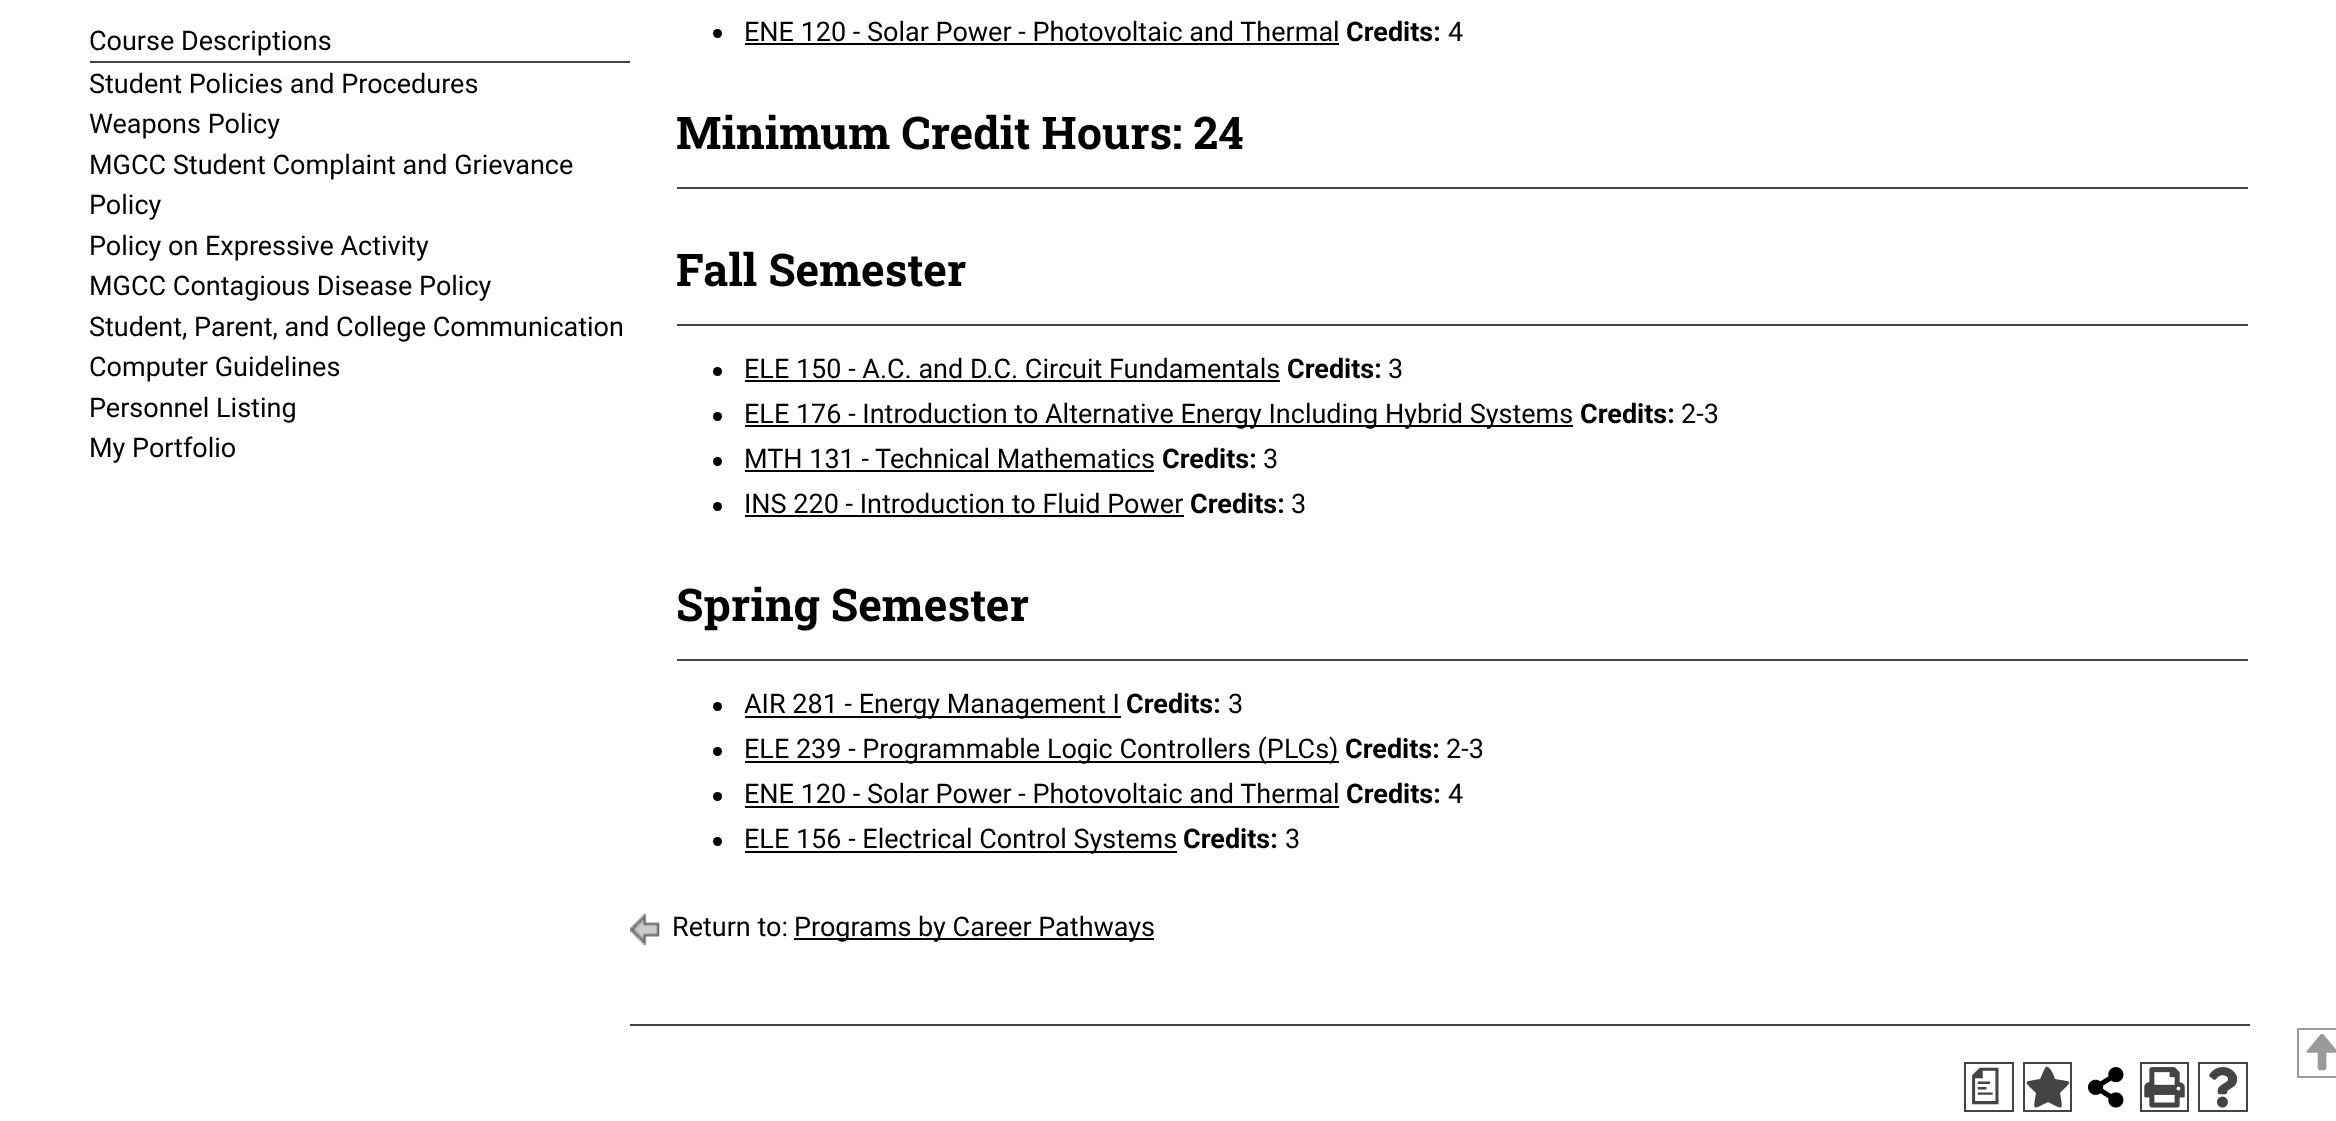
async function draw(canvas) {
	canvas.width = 2336;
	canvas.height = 1121;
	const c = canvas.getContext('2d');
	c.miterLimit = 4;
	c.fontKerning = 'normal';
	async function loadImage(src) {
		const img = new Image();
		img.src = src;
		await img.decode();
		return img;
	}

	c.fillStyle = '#fff';
	c.fillRect(0, 0, 2336, 1121);
	c.font = '27px Roboto';
	c.fillStyle = '#000';
	c.fillText('Course Descriptions', 89, 50);
	c.fillStyle = '#444';
	c.fillRect(90, 61, 540, 2);
	c.fillStyle = '#000';
	for (const [text, x, y] of [
		['Student Policies and Procedures', 89, 93],
		['Weapons Policy', 89, 133],
		['MGCC Student Complaint and Grievance', 89, 174],
		['Policy', 89, 214],
		['Policy on Expressive Activity', 89, 255],
		['MGCC Contagious Disease Policy', 89, 295],
		['Student, Parent, and College Communication', 89, 336],
		['Computer Guidelines', 89, 376],
		['Personnel Listing', 89, 417],
		['My Portfolio', 89, 457],
	]) {
		c.fillText(text, x, y);
	}
	c.beginPath();
	c.arc(717.5, 33.5, 4.5, 0, 2 * Math.PI);
	c.fill();
	c.fillText('ENE 120 - Solar Power - Photovoltaic and Thermal', 744, 41);
	c.fillRect(745, 43, 594, 2);
	c.font = 'bold 27px Roboto';
	c.fillText('Credits:', 1346, 41);
	c.font = '27px Roboto';
	c.fillText('4', 1448, 41);
	c.font = 'bold 45px Roboto Slab';
	c.fillText('Minimum Credit Hours: 24', 676, 149);
	c.fillStyle = '#444';
	c.fillRect(677, 187, 1571, 2);
	c.fillStyle = '#000';
	c.fillText('Fall Semester', 676, 286);
	c.fillStyle = '#444';
	c.fillRect(677, 324, 1571, 2);
	c.fillStyle = '#000';
	c.beginPath();
	c.arc(717.5, 371.5, 4.5, 0, 2 * Math.PI);
	c.fill();
	c.font = '27px Roboto';
	c.fillText('ELE 150 - A.C. and D.C. Circuit Fundamentals', 744, 378);
	c.fillRect(745, 380, 535, 2);
	c.font = 'bold 27px Roboto';
	c.fillText('Credits:', 1287, 378);
	c.font = '27px Roboto';
	c.fillText('3', 1388, 378);
	c.beginPath();
	c.arc(717.5, 416.5, 4.5, 0, 2 * Math.PI);
	c.fill();
	c.fillRect(745, 425, 828, 2);
	c.fillText('ELE 176 - Introduction to Alternative Energy Including Hybrid Systems', 744, 423);
	c.font = 'bold 27px Roboto';
	c.fillText('Credits:', 1580, 423);
	c.font = '27px Roboto';
	c.fillText('2-3', 1681, 423);
	c.beginPath();
	c.arc(717.5, 461.5, 4.5, 0, 2 * Math.PI);
	c.fill();
	c.fillText('MTH 131 - Technical Mathematics', 744, 468);
	c.fillRect(745, 470, 409, 2);
	c.font = 'bold 27px Roboto';
	c.fillText('Credits:', 1162, 468);
	c.font = '27px Roboto';
	c.fillText('3', 1263, 468);
	c.beginPath();
	c.arc(717.5, 506.5, 4.5, 0, 2 * Math.PI);
	c.fill();
	c.fillText('INS 220 - Introduction to Fluid Power', 744, 513);
	c.fillRect(745, 515, 439, 2);
	c.font = 'bold 27px Roboto';
	c.fillText('Credits:', 1190, 513);
	c.font = '27px Roboto';
	c.fillText('3', 1291, 513);
	c.font = 'bold 45px Roboto Slab';
	c.fillText('Spring Semester', 676, 621);
	c.fillStyle = '#444';
	c.fillRect(677, 659, 1571, 2);
	c.fillStyle = '#000';
	c.beginPath();
	c.arc(717.5, 706.5, 4.5, 0, 2 * Math.PI);
	c.fill();
	c.fillRect(745, 716, 376, 2);
	c.font = '27px Roboto';
	c.fillText('AIR 281 - Energy Management I', 744, 713);
	c.font = 'bold 27px Roboto';
	c.fillText('Credits:', 1126, 713);
	c.font = '27px Roboto';
	c.fillText('3', 1228, 713);
	c.beginPath();
	c.arc(717.5, 751.5, 4.5, 0, 2 * Math.PI);
	c.fill();
	c.fillRect(745, 761, 594, 2);
	c.fillText('ELE 239 - Programmable Logic Controllers (PLCs)', 744, 758);
	c.font = 'bold 27px Roboto';
	c.fillText('Credits:', 1345, 758);
	c.font = '27px Roboto';
	c.fillText('2-3', 1446, 758);
	c.beginPath();
	c.arc(717.5, 796.5, 4.5, 0, 2 * Math.PI);
	c.fill();
	c.fillText('ENE 120 - Solar Power - Photovoltaic and Thermal', 744, 803);
	c.fillRect(745, 806, 594, 2);
	c.font = 'bold 27px Roboto';
	c.fillText('Credits:', 1346, 803);
	c.font = '27px Roboto';
	c.fillText('4', 1448, 803);
	c.beginPath();
	c.arc(717.5, 841.5, 4.5, 0, 2 * Math.PI);
	c.fill();
	c.fillRect(745, 851, 432, 2);
	c.fillText('ELE 156 - Electrical Control Systems', 744, 848);
	c.font = 'bold 27px Roboto';
	c.fillText('Credits:', 1183, 848);
	c.font = '27px Roboto';
	c.fillText('3', 1285, 848);
	c.drawImage(await loadImage('img1.png'), 630, 913, 30, 33);
	c.fillText('Return to:', 672, 936);
	c.fillRect(794, 938, 360, 2);
	c.fillText('Programs by Career Pathways', 794, 936);
	c.fillStyle = '#444';
	c.fillRect(630, 1024, 1620, 2);
	c.strokeStyle = '#444';
	c.lineWidth = 2;
	c.strokeRect(1965, 1063, 48, 48);
	c.font = '500 40px "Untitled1"';
	c.fillText('a', 1965, 1098);
	c.strokeRect(2024, 1063, 47, 48);
	c.beginPath();
	c.moveTo(2045, 1068);
	c.bezierCurveTo(2049, 1062, 2055, 1078, 2055, 1079);
	c.bezierCurveTo(2073, 1082, 2073, 1080, 2060, 1093);
	c.bezierCurveTo(2063, 1111, 2064, 1110, 2048, 1102);
	c.bezierCurveTo(2032, 1110, 2033, 1111, 2036, 1093);
	c.bezierCurveTo(2023, 1080, 2023, 1082, 2040, 1079);
	c.closePath();
	c.fill();
	c.drawImage(await loadImage('img2.png'), 2088, 1067, 36, 41);
	c.strokeRect(2141, 1063, 47, 48);
	c.drawImage(await loadImage('img3.png'), 2144, 1067, 41, 41);
	c.strokeRect(2199, 1063, 48, 48);
	c.drawImage(await loadImage('img4.png'), 2209, 1067, 29, 41);
	c.strokeStyle = '#9a9a9a';
	c.strokeRect(2298, 1029, 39, 48);
	c.fillStyle = '#9a9a9a';
	c.fillText('T', 2301, 1064);
}

draw(document.querySelector('canvas'));
